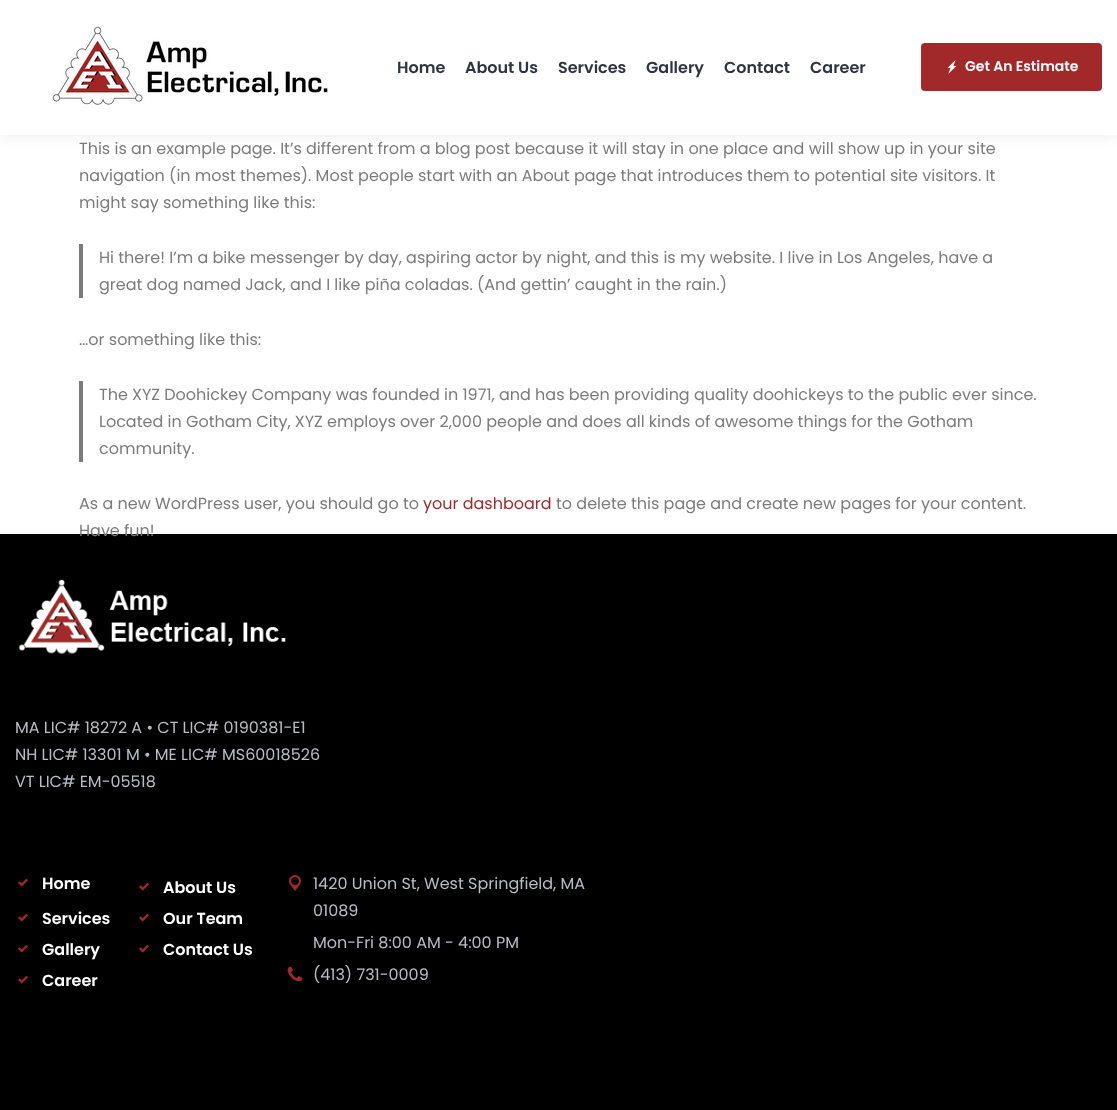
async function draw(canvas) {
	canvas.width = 1117;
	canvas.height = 1110;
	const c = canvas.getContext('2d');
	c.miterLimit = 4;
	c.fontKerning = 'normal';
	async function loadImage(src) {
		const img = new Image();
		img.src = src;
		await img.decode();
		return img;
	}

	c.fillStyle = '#fff';
	c.fillRect(0, 0, 1117, 1110);
	c.fillStyle = '#3034421a';
	c.filter = 'blur(7.5px)';
	c.beginPath();
	c.rect(0, 0, 1117, 135);
	c.fill();
	c.filter = 'none';
	c.fillStyle = '#fff';
	c.fillRect(0, 0, 1117, 135);
	c.drawImage(await loadImage('img1.png'), 52, 26, 276, 79);
	c.font = '600 16px Poppins';
	c.fillStyle = '#303442';
	for (const [text, x, y] of [
		['Home', 397, 73],
		['About Us', 465, 73],
		['Services', 558, 73],
		['Gallery', 646, 73],
		['Contact', 724, 73],
		['Career', 810, 73],
	]) {
		c.fillText(text, x, y);
	}
	c.fillStyle = '#a1292a';
	c.beginPath();
	c.roundRect(921, 43, 181, 48, 4);
	c.fill();
	c.drawImage(await loadImage('img2.png'), 947, 60, 10, 14);
	c.font = '600 14px Poppins';
	c.fillStyle = '#fff';
	c.fillText('Get An Estimate', 965, 71);
	c.font = '16px Poppins';
	c.fillStyle = '#7b7b7b';
	for (const [text, x, y] of [
		['This is an example page. It’s different from a blog post because it will stay in one place and will show up in your site', 79, 154],
		['navigation (in most themes). Most people start with an About page that introduces them to potential site visitors. It', 79, 181],
		['might say something like this:', 79, 208],
	]) {
		c.fillText(text, x, y);
	}
	c.fillRect(79, 244, 4, 54);
	for (const [text, x, y] of [
		['Hi there! I’m a bike messenger by day, aspiring actor by night, and this is my website. I live in Los Angeles, have a', 99, 263],
		['great dog named Jack, and I like piña coladas. (And gettin’ caught in the rain.)', 99, 290],
		['…or something like this:', 79, 345],
	]) {
		c.fillText(text, x, y);
	}
	c.fillRect(79, 381, 4, 81);
	for (const [text, x, y] of [
		['The XYZ Doohickey Company was founded in 1971, and has been providing quality doohickeys to the public ever since.', 99, 400],
		['Located in Gotham City, XYZ employs over 2,000 people and does all kinds of awesome things for the Gotham', 99, 427],
		['community.', 99, 454],
		['As a new WordPress user, you should go to', 79, 509],
	]) {
		c.fillText(text, x, y);
	}
	c.fillStyle = '#a1292a';
	c.fillText('your dashboard', 423, 509);
	c.fillStyle = '#7b7b7b';
	c.fillText('to delete this page and create new pages for your content.', 556, 509);
	c.fillStyle = '#000';
	c.fillRect(0, 534, 1117, 576);
	c.fillStyle = '#7b7b7b';
	c.fillText('Have fun!', 79, 536);
	c.drawImage(await loadImage('img3.png'), 18, 579, 268, 76);
	c.fillStyle = '#bbbdc3';
	for (const [text, x, y] of [
		['MA LIC# 18272 A • CT LIC# 0190381-E1', 15, 733],
		['NH LIC# 13301 M • ME LIC# MS60018526', 15, 760],
		['VT LIC# EM-05518', 15, 787],
	]) {
		c.fillText(text, x, y);
	}
	c.drawImage(await loadImage('img4.png'), 18, 878, 10, 9);
	c.font = '600 16px Poppins';
	c.fillStyle = '#fff';
	c.fillText('Home', 42, 889);
	c.drawImage(await loadImage('img4.png'), 139, 882, 10, 9);
	c.fillText('About Us', 163, 893);
	c.drawImage(await loadImage('img4.png'), 18, 913, 10, 9);
	c.fillText('Services', 42, 924);
	c.drawImage(await loadImage('img4.png'), 139, 913, 10, 9);
	c.fillText('Our Team', 163, 924);
	c.drawImage(await loadImage('img4.png'), 18, 944, 10, 9);
	c.fillText('Gallery', 42, 955);
	c.drawImage(await loadImage('img4.png'), 139, 944, 10, 9);
	c.fillText('Contact Us', 163, 955);
	c.drawImage(await loadImage('img4.png'), 18, 975, 10, 9);
	c.fillText('Career', 42, 986);
	c.drawImage(await loadImage('img5.png'), 289, 875, 12, 16);
	c.font = '16px Poppins';
	c.fillStyle = '#bbbdc3';
	for (const [text, x, y] of [
		['1420 Union St, West Springfield, MA', 313, 889],
		['01089', 313, 916],
		['Mon-Fri 8:00 AM - 4:00 PM', 313, 948],
	]) {
		c.fillText(text, x, y);
	}
	c.drawImage(await loadImage('img6.png'), 287, 966, 16, 16);
	c.fillText('(413) 731-0009', 313, 980);
}

draw(document.querySelector('canvas'));
